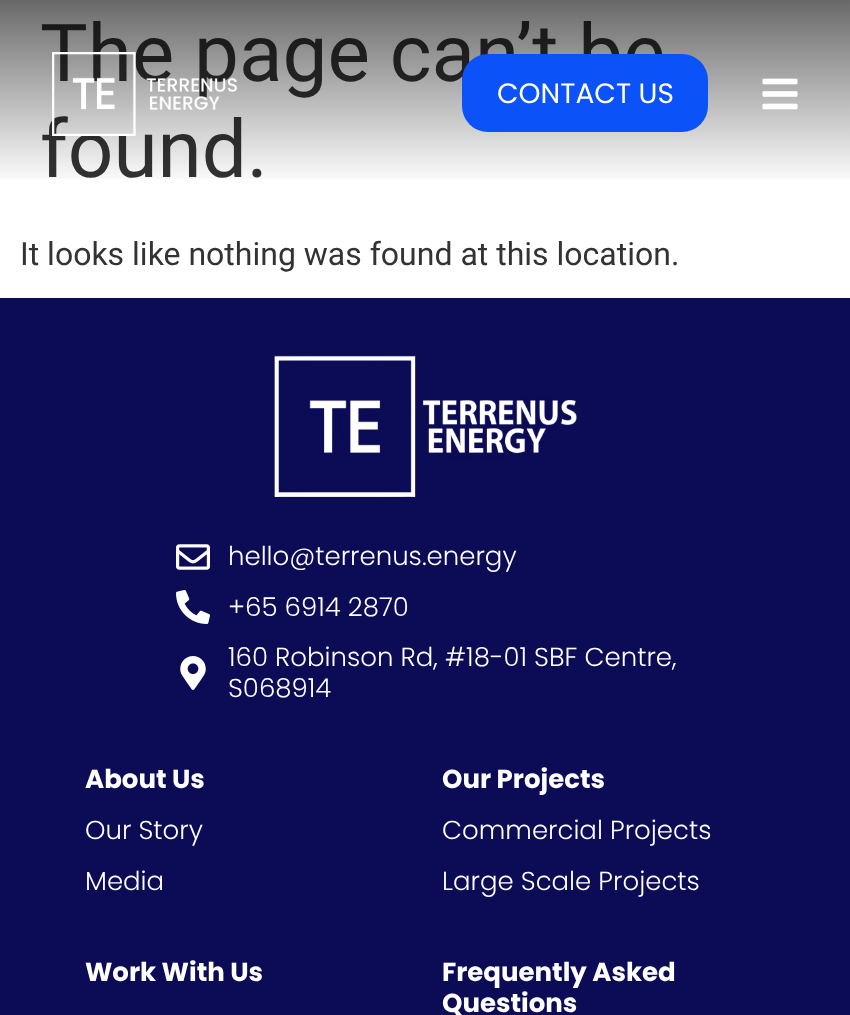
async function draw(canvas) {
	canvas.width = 850;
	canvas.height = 1015;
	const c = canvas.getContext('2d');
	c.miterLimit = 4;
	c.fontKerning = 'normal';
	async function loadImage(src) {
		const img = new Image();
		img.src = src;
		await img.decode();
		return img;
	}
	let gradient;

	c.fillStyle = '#fff';
	c.fillRect(0, 0, 850, 1015);
	c.font = '80px Roboto';
	c.fillStyle = '#333';
	c.fillText('The page can’t be', 40, 81);
	c.fillText('found.', 40, 177);
	c.font = '32px Roboto';
	c.fillText('It looks like nothing was found at this location.', 20, 265);
	gradient = c.createLinearGradient(425, 0, 425, 186);
	gradient.addColorStop(0, '#00000096');
	gradient.addColorStop(1, '#00000000');
	c.fillStyle = gradient;
	c.fillRect(0, 0, 850, 179);
	c.drawImage(await loadImage('img1.png'), 52, 52, 186, 84);
	c.fillStyle = '#0b52f8';
	c.beginPath();
	c.roundRect(462, 54, 246, 78, 26);
	c.fill();
	c.font = '28px Poppins';
	c.fillStyle = '#fff';
	c.fillText('CONTACT US', 497, 103);
	c.drawImage(await loadImage('img2.png'), 762, 78, 36, 32);
	c.fillStyle = '#0c0b55';
	c.fillRect(0, 298, 850, 717);
	c.drawImage(await loadImage('img3.png'), 274, 355, 303, 142);
	c.drawImage(await loadImage('img4.png'), 176, 544, 34, 26);
	c.font = '300 26px Poppins';
	c.fillStyle = '#fff';
	c.fillText('hello@terrenus.energy', 228, 565);
	c.drawImage(await loadImage('img5.png'), 176, 590, 34, 34);
	c.fillText('+65 6914 2870', 228, 616);
	c.drawImage(await loadImage('img6.png'), 180, 656, 26, 34);
	c.fillText('160 Robinson Rd, #18-01 SBF Centre,', 228, 666);
	c.fillText('S068914', 228, 697);
	c.font = 'bold 26px Poppins';
	c.fillText('About Us', 85, 788);
	c.font = '300 26px Poppins';
	c.fillText('Our Story', 85, 839);
	c.fillText('Media', 85, 890);
	c.font = 'bold 26px Poppins';
	c.fillText('Our Projects', 442, 788);
	c.font = '300 26px Poppins';
	c.fillText('Commercial Projects', 442, 839);
	c.fillText('Large Scale Projects', 442, 890);
	c.font = 'bold 26px Poppins';
	for (const [text, x, y] of [
		['Work With Us', 85, 981],
		['Frequently Asked', 442, 981],
		['Questions', 442, 1012],
	]) {
		c.fillText(text, x, y);
	}
}

draw(document.querySelector('canvas'));
